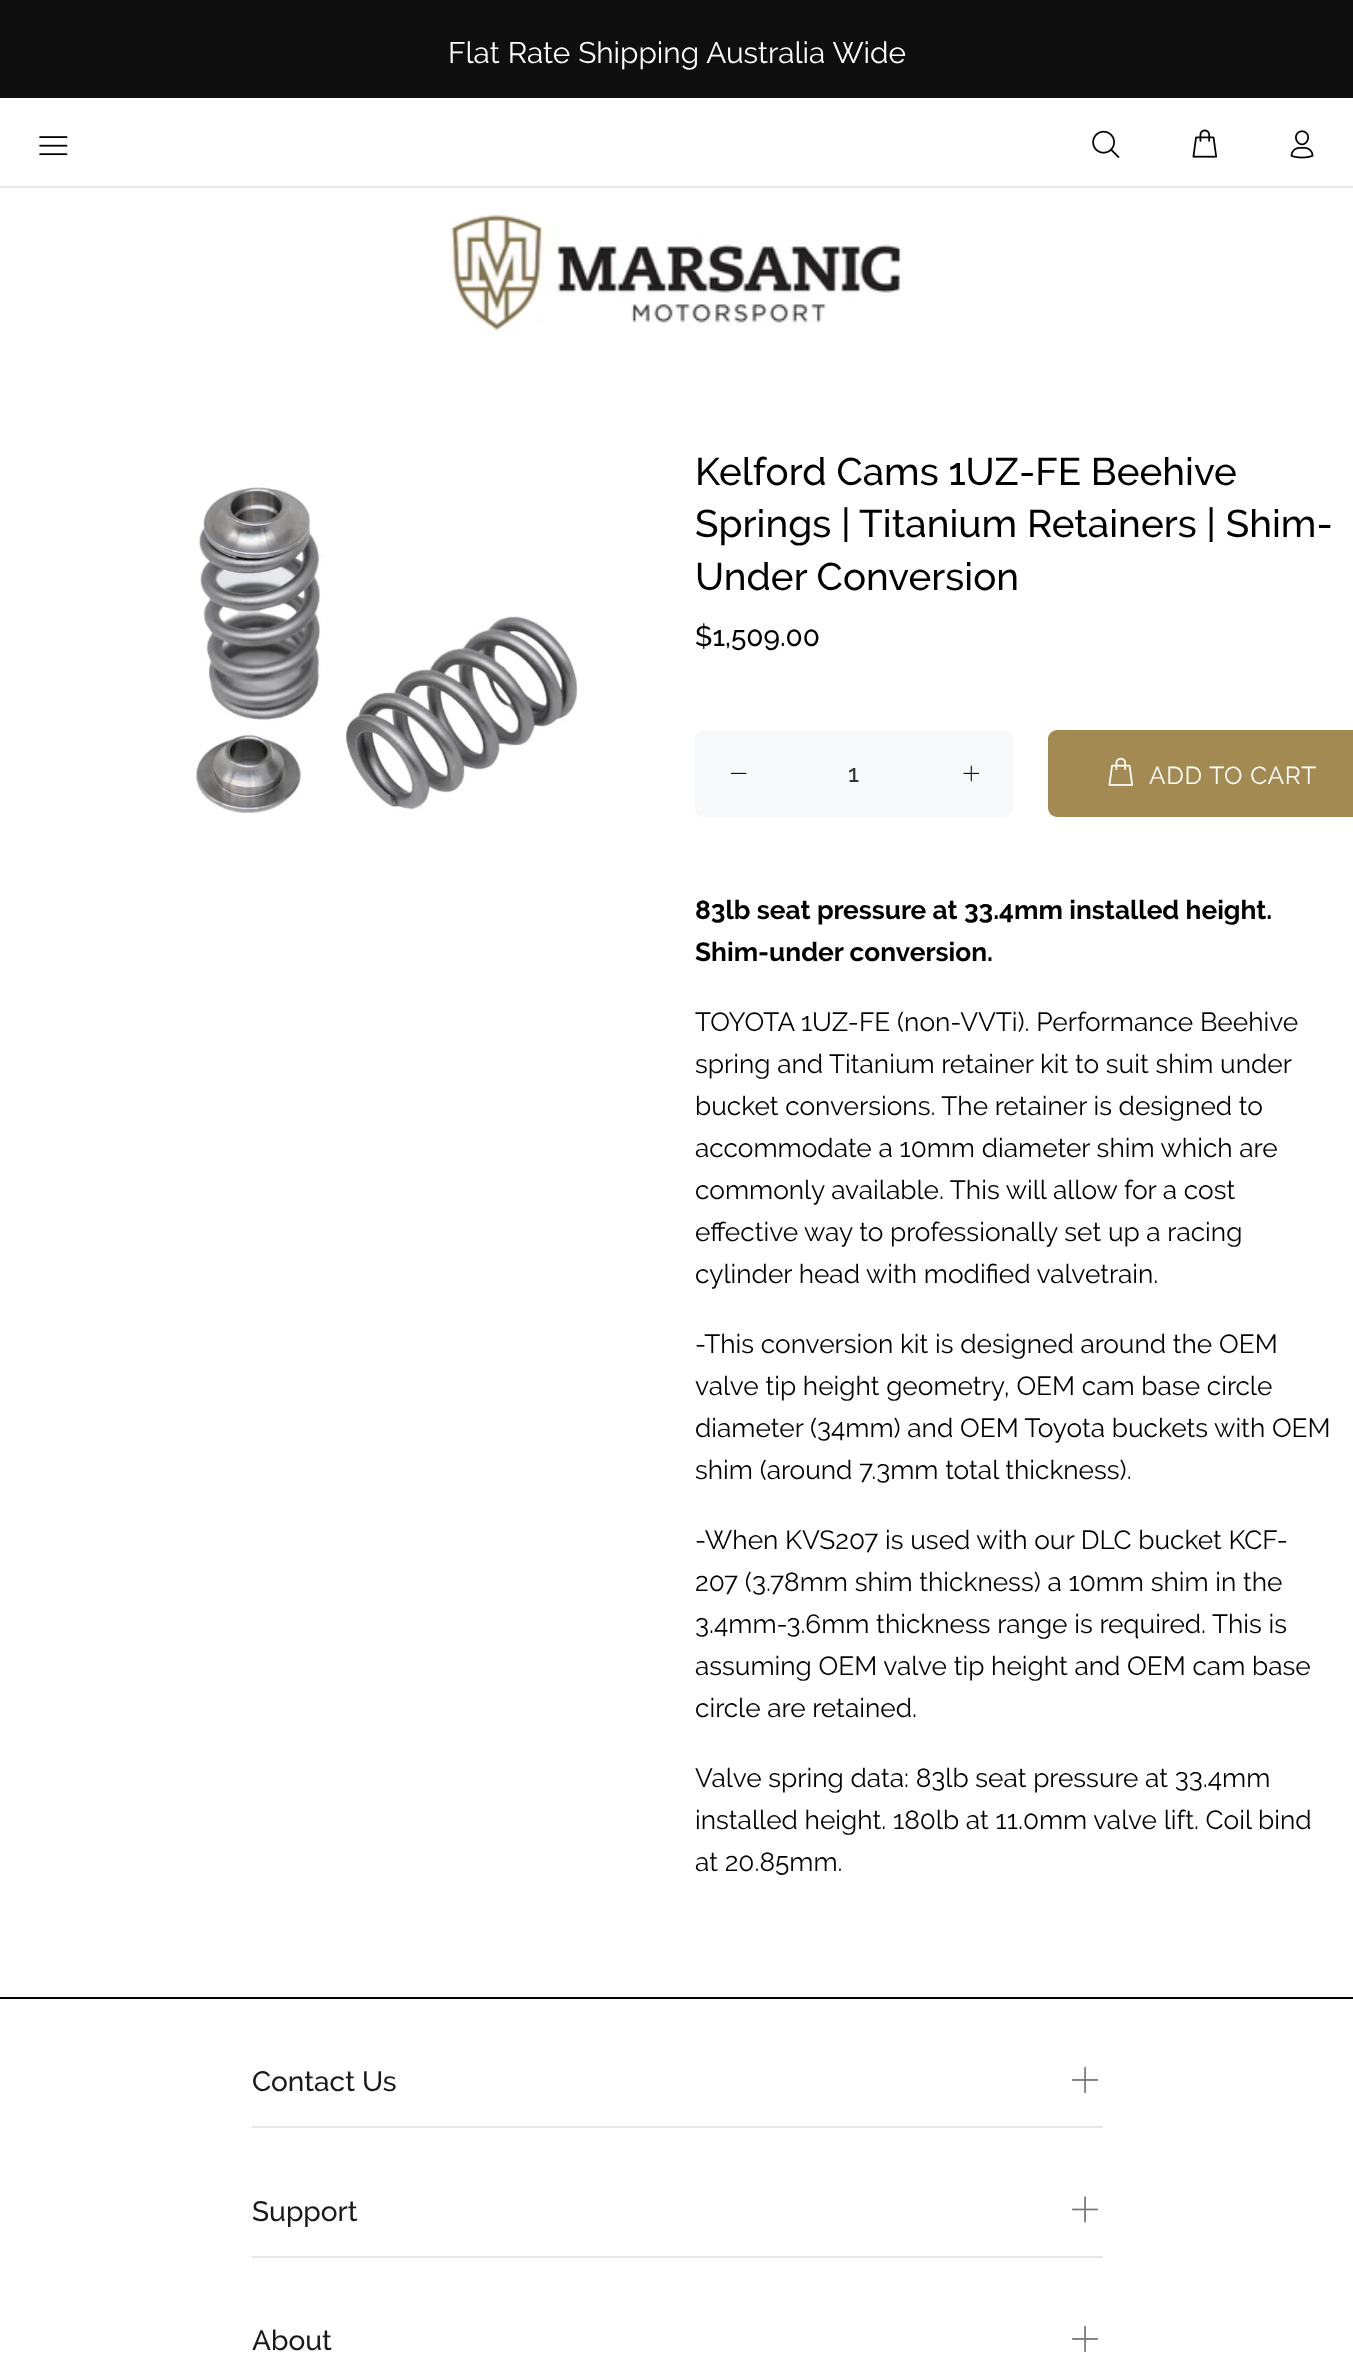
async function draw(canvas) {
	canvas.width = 1353;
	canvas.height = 2370;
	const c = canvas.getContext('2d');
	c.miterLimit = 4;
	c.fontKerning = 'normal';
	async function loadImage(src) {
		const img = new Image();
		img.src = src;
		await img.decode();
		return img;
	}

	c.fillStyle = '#fff';
	c.fillRect(0, 0, 1353, 2370);
	c.fillStyle = '#0f0f0f';
	c.fillRect(0, 0, 1353, 98);
	c.wordSpacing = '0.5px';
	c.font = '29.75px Raleway';
	c.fillStyle = '#fff';
	c.fillText('Flat Rate Shipping Australia Wide', 448, 63);
	c.drawImage(await loadImage('img1.png'), 39, 136, 29, 20);
	c.drawImage(await loadImage('img2.png'), 1092, 130, 28, 28);
	c.drawImage(await loadImage('img3.png'), 1192, 129, 26, 29);
	c.drawImage(await loadImage('img4.png'), 1290, 130, 24, 29);
	c.fillStyle = '#e9e7e7';
	c.fillRect(0, 186, 1353, 2);
	c.drawImage(await loadImage('img5.png'), 450, 214, 454, 120);
	c.drawImage(await loadImage('img6.png'), 196, 484, 382, 331);
	c.letterSpacing = '0.05px';
	c.wordSpacing = '0px';
	c.font = '500 38.5px Raleway';
	c.fillStyle = '#000';
	for (const [text, x, y] of [
		['Kelford Cams 1UZ-FE Beehive', 695, 485],
		['Springs | Titanium Retainers | Shim-', 695, 537],
		['Under Conversion', 695, 590],
	]) {
		c.fillText(text, x, y);
	}
	c.letterSpacing = '0px';
	c.font = '500 28px Raleway';
	c.fillText('$1,509.00', 695, 646);
	c.fillStyle = '#f7f8fa';
	c.beginPath();
	c.roundRect(695, 730, 318, 87, 9);
	c.fill();
	c.drawImage(await loadImage('img7.png'), 730, 772, 17, 2);
	c.font = '500 24.5px Raleway';
	c.fillStyle = '#333';
	c.fillText('1', 848, 782);
	c.drawImage(await loadImage('img8.png'), 963, 765, 17, 17);
	c.fillStyle = '#a38a52';
	c.beginPath();
	c.roundRect(1048, 730, 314, 87, 9);
	c.fill();
	c.drawImage(await loadImage('img9.png'), 1108, 757, 25, 29);
	c.letterSpacing = '0.75px';
	c.font = '24.5px Raleway';
	c.fillStyle = '#fff';
	c.fillText('ADD TO CART', 1149, 784);
	c.letterSpacing = '0px';
	c.font = 'bold 26.25px Raleway';
	c.fillStyle = '#000';
	c.fillText('83lb seat pressure at 33.4mm installed height.', 695, 919);
	c.fillText('Shim-under conversion.', 695, 961);
	c.font = '26.25px Raleway';
	for (const [text, x, y] of [
		['TOYOTA 1UZ-FE (non-VVTi). Performance Beehive', 695, 1031],
		['spring and Titanium retainer kit to suit shim under', 695, 1073],
		['bucket conversions. The retainer is designed to', 695, 1115],
		['accommodate a 10mm diameter shim which are', 695, 1157],
		['commonly available. This will allow for a cost', 695, 1199],
		['effective way to professionally set up a racing', 695, 1241],
		['cylinder head with modified valvetrain.', 695, 1283],
		['-This conversion kit is designed around the OEM', 695, 1353],
		['valve tip height geometry, OEM cam base circle', 695, 1395],
		['diameter (34mm) and OEM Toyota buckets with OEM', 695, 1437],
		['shim (around 7.3mm total thickness).', 695, 1479],
		['-When KVS207 is used with our DLC bucket KCF-', 695, 1549],
		['207 (3.78mm shim thickness) a 10mm shim in the', 695, 1591],
		['3.4mm-3.6mm thickness range is required. This is', 695, 1633],
		['assuming OEM valve tip height and OEM cam base', 695, 1675],
		['circle are retained.', 695, 1717],
		['Valve spring data: 83lb seat pressure at 33.4mm', 695, 1787],
		['installed height. 180lb at 11.0mm valve lift. Coil bind', 695, 1829],
		['at 20.85mm.', 695, 1871],
	]) {
		c.fillText(text, x, y);
	}
	c.fillRect(0, 1997, 1353, 2);
	c.fillStyle = '#e9e7e7';
	c.fillRect(252, 2126, 851, 2);
	c.font = '500 28px Raleway';
	c.fillStyle = '#191919';
	c.fillText('Contact Us', 252, 2091);
	c.drawImage(await loadImage('img10.png'), 1072, 2066, 27, 28);
	c.fillStyle = '#e9e7e7';
	c.fillRect(252, 2256, 851, 2);
	c.fillStyle = '#191919';
	c.fillText('Support', 252, 2221);
	c.drawImage(await loadImage('img11.png'), 1071, 2196, 28, 27);
	c.fillText('About', 252, 2350);
	c.drawImage(await loadImage('img10.png'), 1072, 2325, 27, 28);
}

draw(document.querySelector('canvas'));
